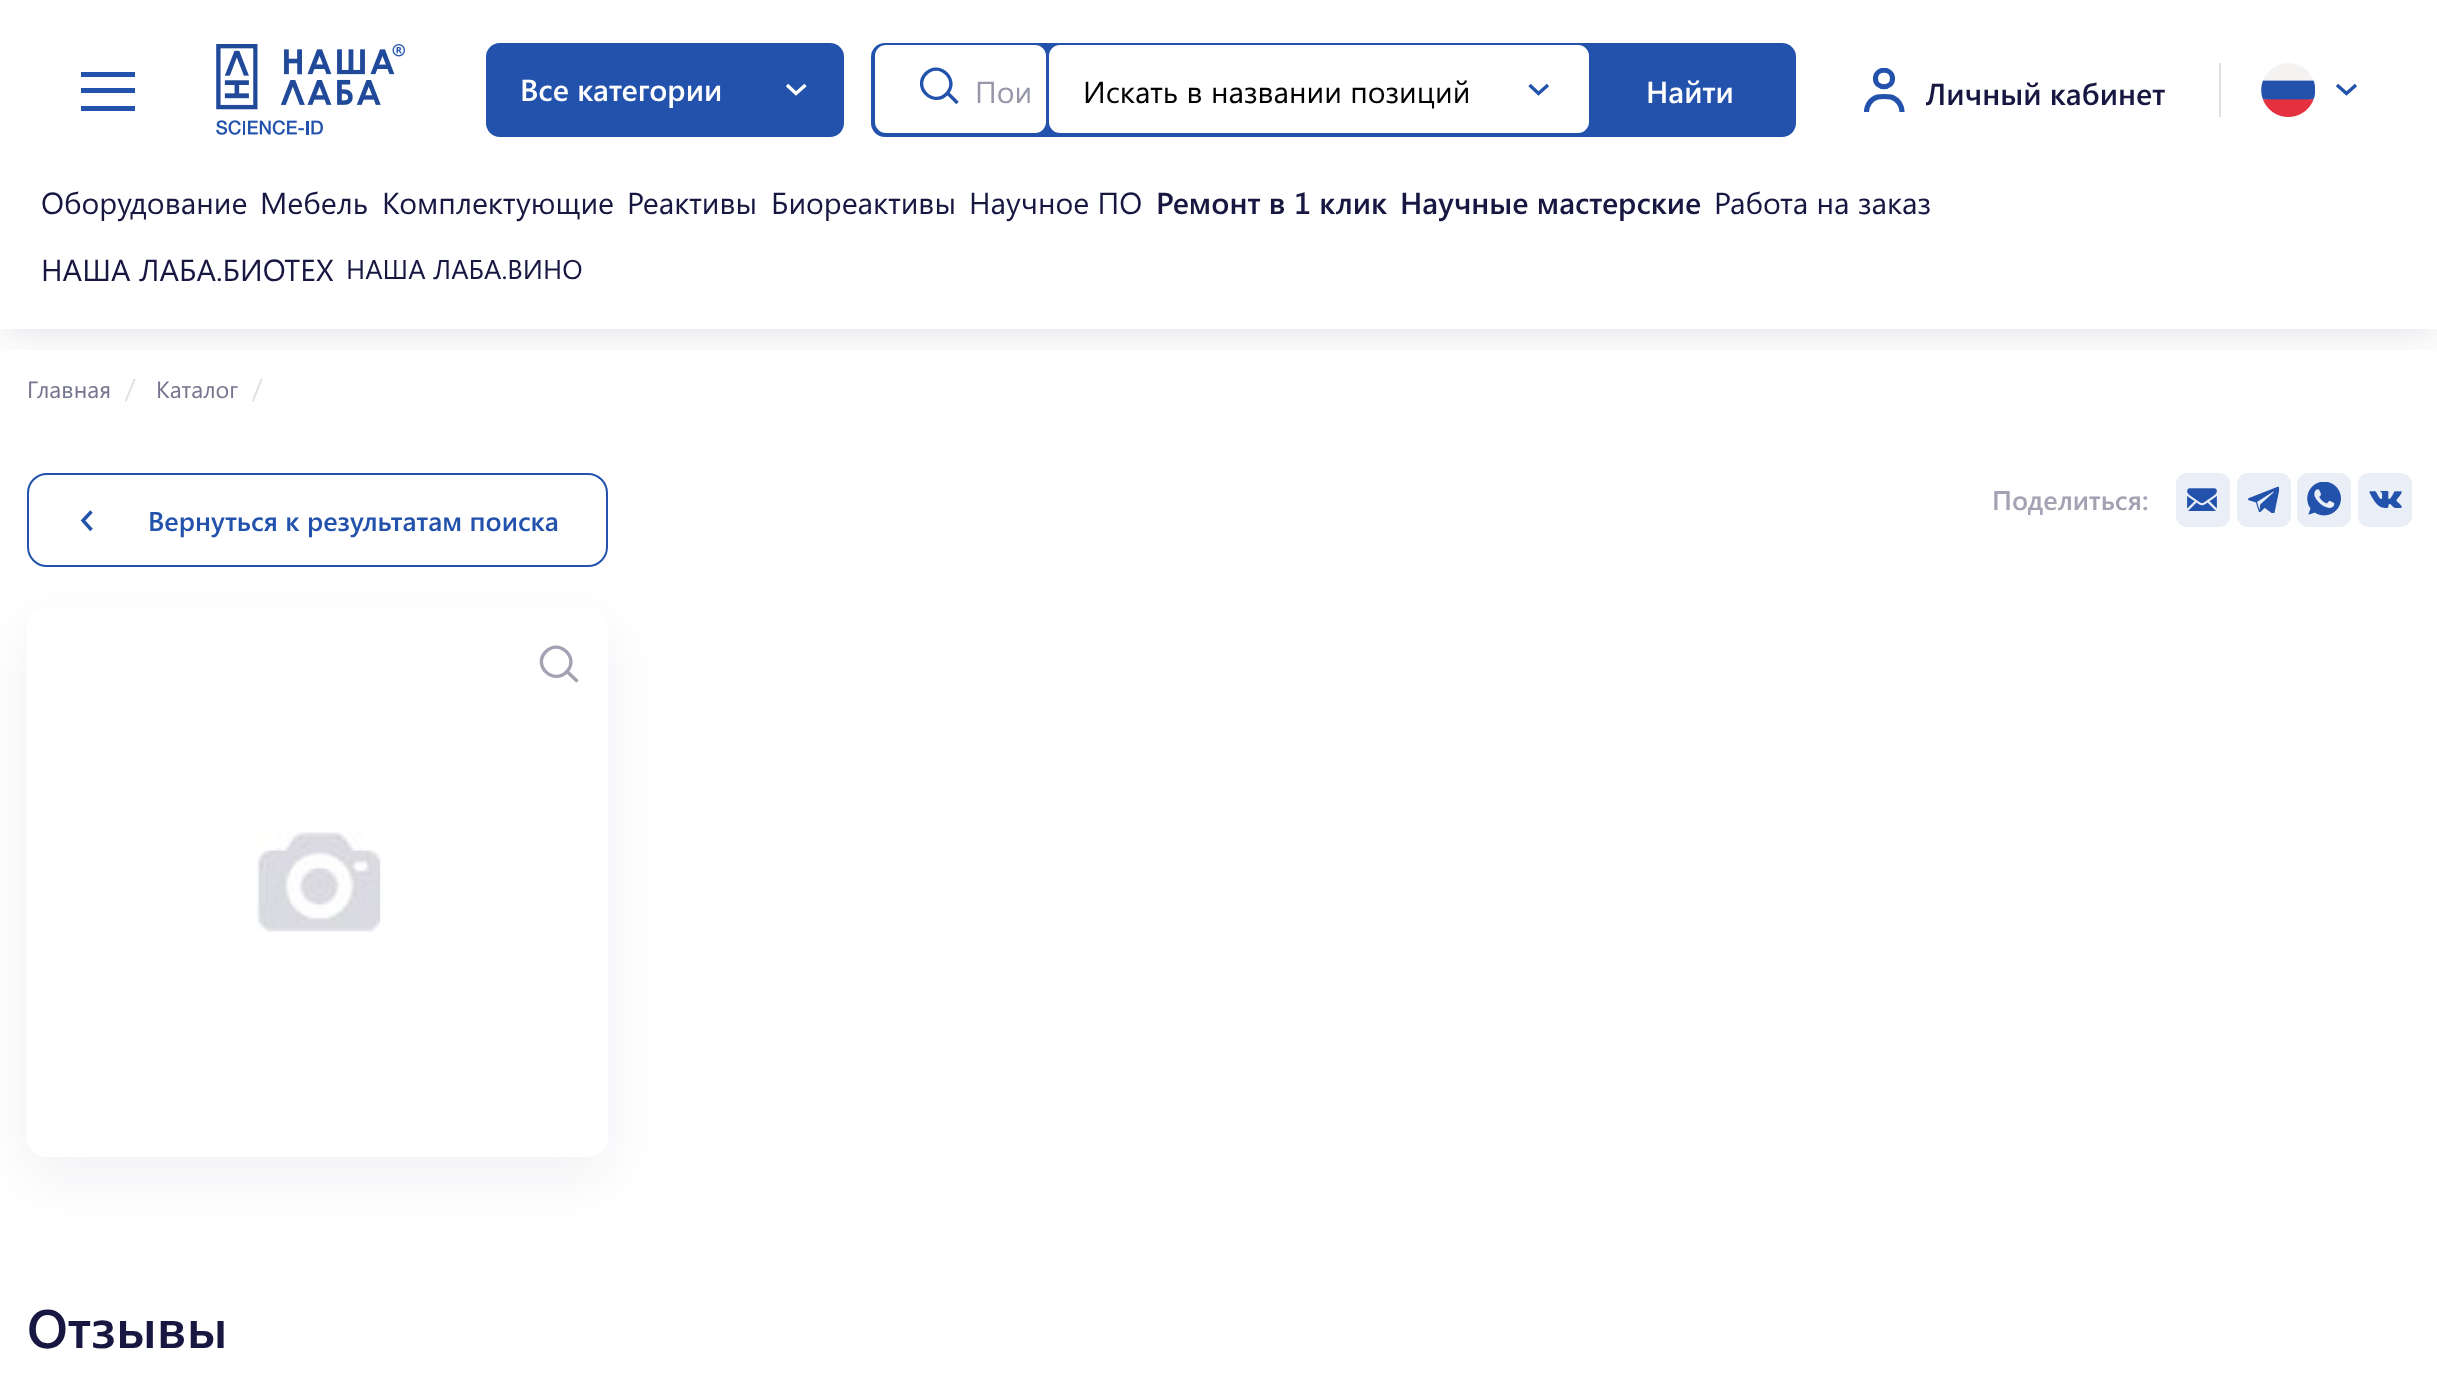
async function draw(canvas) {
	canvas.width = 2437;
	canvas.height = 1379;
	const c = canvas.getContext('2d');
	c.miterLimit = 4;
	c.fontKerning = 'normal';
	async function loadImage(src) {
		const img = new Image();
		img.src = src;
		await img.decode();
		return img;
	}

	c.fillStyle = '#fff';
	c.fillRect(0, 0, 2437, 1379);
	c.save();
	c.beginPath();
	c.rect(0, 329, 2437, 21);
	c.clip();
	c.fillStyle = '#17174224';
	c.filter = 'blur(20px)';
	c.beginPath();
	c.rect(0, 0, 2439, 329);
	c.fill();
	c.filter = 'none';
	c.restore();
	for (const [x, y, w, h, color] of [
		[81, 72, 54, 5, '#2252ac'],
		[81, 106, 54, 5, '#2252ac'],
		[81, 88, 54, 5, '#2252ac'],
	]) {
		c.fillStyle = color;
		c.fillRect(x, y, w, h);
	}
	c.drawImage(await loadImage('img1.png'), 216, 44, 189, 91);
	c.beginPath();
	c.roundRect(486, 43, 358, 94, 14);
	c.fill();
	c.font = '600 30.4px Segoe UI';
	c.fillStyle = '#fff';
	c.fillText('Все категории', 520, 101);
	c.beginPath();
	c.moveTo(787, 85);
	c.lineTo(796, 93.5);
	c.lineTo(805.5, 85);
	c.strokeStyle = '#fff';
	c.lineWidth = 3.4;
	c.stroke();
	c.fillStyle = '#2252ac';
	c.beginPath();
	c.roundRect(871, 43, 925, 94, 14);
	c.fill();
	c.fillStyle = '#fff';
	c.beginPath();
	c.roundRect(875, 45, 171, 88, 11);
	c.fill();
	c.beginPath();
	c.moveTo(926, 73.5);
	c.bezierCurveTo(939.5, 60, 960, 80.5, 946.5, 94);
	c.bezierCurveTo(933, 107.5, 912.5, 87, 926, 73.5);
	c.closePath();
	c.moveTo(947.5, 93);
	c.lineTo(957.5, 103);
	c.strokeStyle = '#2252ac';
	c.stroke();
	c.font = '30.4px Segoe UI';
	c.fillStyle = '#9797aa';
	c.fillText('Пои', 975, 103);
	c.fillStyle = '#fff';
	c.beginPath();
	c.roundRect(1049, 45, 540, 88, 11);
	c.fill();
	c.fillStyle = '#000';
	c.fillText('Искать в названии позиций', 1083, 103);
	c.beginPath();
	c.moveTo(1529.5, 85);
	c.lineTo(1538.5, 93.5);
	c.lineTo(1548, 85);
	c.stroke();
	c.font = '600 30.4px Segoe UI';
	c.fillStyle = '#fff';
	c.fillText('Найти', 1646, 103);
	c.save();
	c.beginPath();
	c.rect(1863, 68, 43, 47);
	c.clip();
	c.beginPath();
	c.moveTo(1875.5, 78.5);
	c.bezierCurveTo(1875.5, 67.5, 1892.5, 67.5, 1892.5, 78.5);
	c.bezierCurveTo(1892.5, 89.5, 1875.5, 89.5, 1875.5, 78.5);
	c.closePath();
	c.lineWidth = 5.1;
	c.stroke();
	c.restore();
	c.beginPath();
	c.moveTo(1866.5, 112);
	c.bezierCurveTo(1866.5, 105, 1871, 99, 1877.5, 97);
	c.bezierCurveTo(1879.5, 96.5, 1881.5, 96.5, 1883.5, 96.5);
	c.bezierCurveTo(1886, 96.5, 1888.5, 96.5, 1891, 97);
	c.bezierCurveTo(1897.5, 99, 1902, 105, 1902, 112);
	c.lineWidth = 5.1;
	c.stroke();
	c.save();
	c.beginPath();
	c.rect(1926, 72, 239, 41);
	c.clip();
	c.fillStyle = '#171742';
	c.fillText('Личный кабинет', 1925, 105);
	c.restore();
	c.fillStyle = '#dfdfe5';
	c.fillRect(2219, 63, 2, 54);
	c.drawImage(await loadImage('img2.png'), 2261, 63, 54, 54);
	c.beginPath();
	c.moveTo(2337, 85);
	c.lineTo(2346.5, 93.5);
	c.lineTo(2356, 85);
	c.lineWidth = 3.4;
	c.stroke();
	c.fillStyle = '#fff';
	c.fillRect(0, 328, 2437, 1);
	c.font = '30.4px Segoe UI';
	c.fillStyle = '#171742';
	for (const [text, x, y] of [
		['Оборудование', 41, 214],
		['Мебель', 260, 214],
		['Комплектующие', 382, 214],
		['Реактивы', 627, 214],
		['Биореактивы', 771, 214],
		['Научное ПО', 969, 214],
	]) {
		c.fillText(text, x, y);
	}
	c.font = '600 30.4px Segoe UI';
	c.fillText('Ремонт в 1 клик', 1156, 214);
	c.fillText('Научные мастерские', 1400, 214);
	c.font = '30.4px Segoe UI';
	c.fillText('Работа на заказ', 1714, 214);
	c.fillText('НАША ЛАБА.БИОТЕХ', 41, 281);
	c.font = '27px Segoe UI';
	c.fillText('НАША ЛАБА.ВИНО', 346, 279);
	c.font = '23.5px Segoe UI';
	c.fillStyle = '#74748e';
	c.fillText('Главная', 27, 398);
	c.font = '27px Segoe UI';
	c.fillStyle = '#e1e1e1';
	c.fillText('/', 125, 398);
	c.font = '23.5px Segoe UI';
	c.fillStyle = '#74748e';
	c.fillText('Каталог', 156, 398);
	c.font = '27px Segoe UI';
	c.fillStyle = '#e1e1e1';
	c.fillText('/', 252, 398);
	c.font = '600 27px Segoe UI';
	c.fillStyle = '#a2a2b3';
	c.fillText('Поделиться:', 1992, 510);
	c.fillStyle = '#e9eef7';
	c.beginPath();
	c.roundRect(2176, 473, 54, 54, 11);
	c.fill();
	c.drawImage(await loadImage('img3.png'), 2187, 488, 30, 23);
	c.beginPath();
	c.roundRect(2237, 473, 54, 54, 11);
	c.fill();
	c.drawImage(await loadImage('img4.png'), 2248, 486, 31, 27);
	c.beginPath();
	c.roundRect(2297, 473, 54, 54, 11);
	c.fill();
	c.drawImage(await loadImage('img5.png'), 2307, 482, 34, 34);
	c.beginPath();
	c.roundRect(2358, 473, 54, 54, 11);
	c.fill();
	c.drawImage(await loadImage('img6.png'), 2369, 491, 33, 17);
	c.beginPath();
	c.roundRect(28, 474, 579, 92, 19);
	c.lineWidth = 2;
	c.stroke();
	c.beginPath();
	c.moveTo(91.5, 511.5);
	c.lineTo(83, 520.5);
	c.lineTo(91.5, 530);
	c.lineWidth = 3.4;
	c.stroke();
	c.fillStyle = '#2252ac';
	c.fillText('Вернуться к результатам поиска', 148, 531);
	c.save();
	c.beginPath();
	c.moveTo(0, 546);
	c.lineTo(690, 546);
	c.lineTo(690, 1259);
	c.lineTo(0, 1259);
	c.closePath();
	c.moveTo(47, 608);
	c.lineTo(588, 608);
	c.bezierCurveTo(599, 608, 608, 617, 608, 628);
	c.lineTo(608, 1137);
	c.bezierCurveTo(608, 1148, 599, 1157, 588, 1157);
	c.lineTo(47, 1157);
	c.bezierCurveTo(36, 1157, 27, 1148, 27, 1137);
	c.lineTo(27, 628);
	c.bezierCurveTo(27, 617, 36, 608, 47, 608);
	c.closePath();
	c.clip('evenodd');
	c.fillStyle = '#1717420f';
	c.filter = 'blur(27px)';
	c.beginPath();
	c.roundRect(27, 628, 581, 549, 20);
	c.fill();
	c.filter = 'none';
	c.restore();
	c.beginPath();
	c.moveTo(546, 651.5);
	c.bezierCurveTo(559.5, 638, 580, 658.5, 566.5, 672);
	c.bezierCurveTo(553, 685.5, 532, 665, 546, 651.5);
	c.closePath();
	c.moveTo(567, 671.5);
	c.lineTo(577.5, 681.5);
	c.strokeStyle = '#a2a2b3';
	c.stroke();
	c.drawImage(await loadImage('img7.png'), 256, 832, 125, 100);
	c.font = '600 54px Segoe UI';
	c.fillStyle = '#171742';
	c.fillText('Отзывы', 27, 1348);
}

draw(document.querySelector('canvas'));
